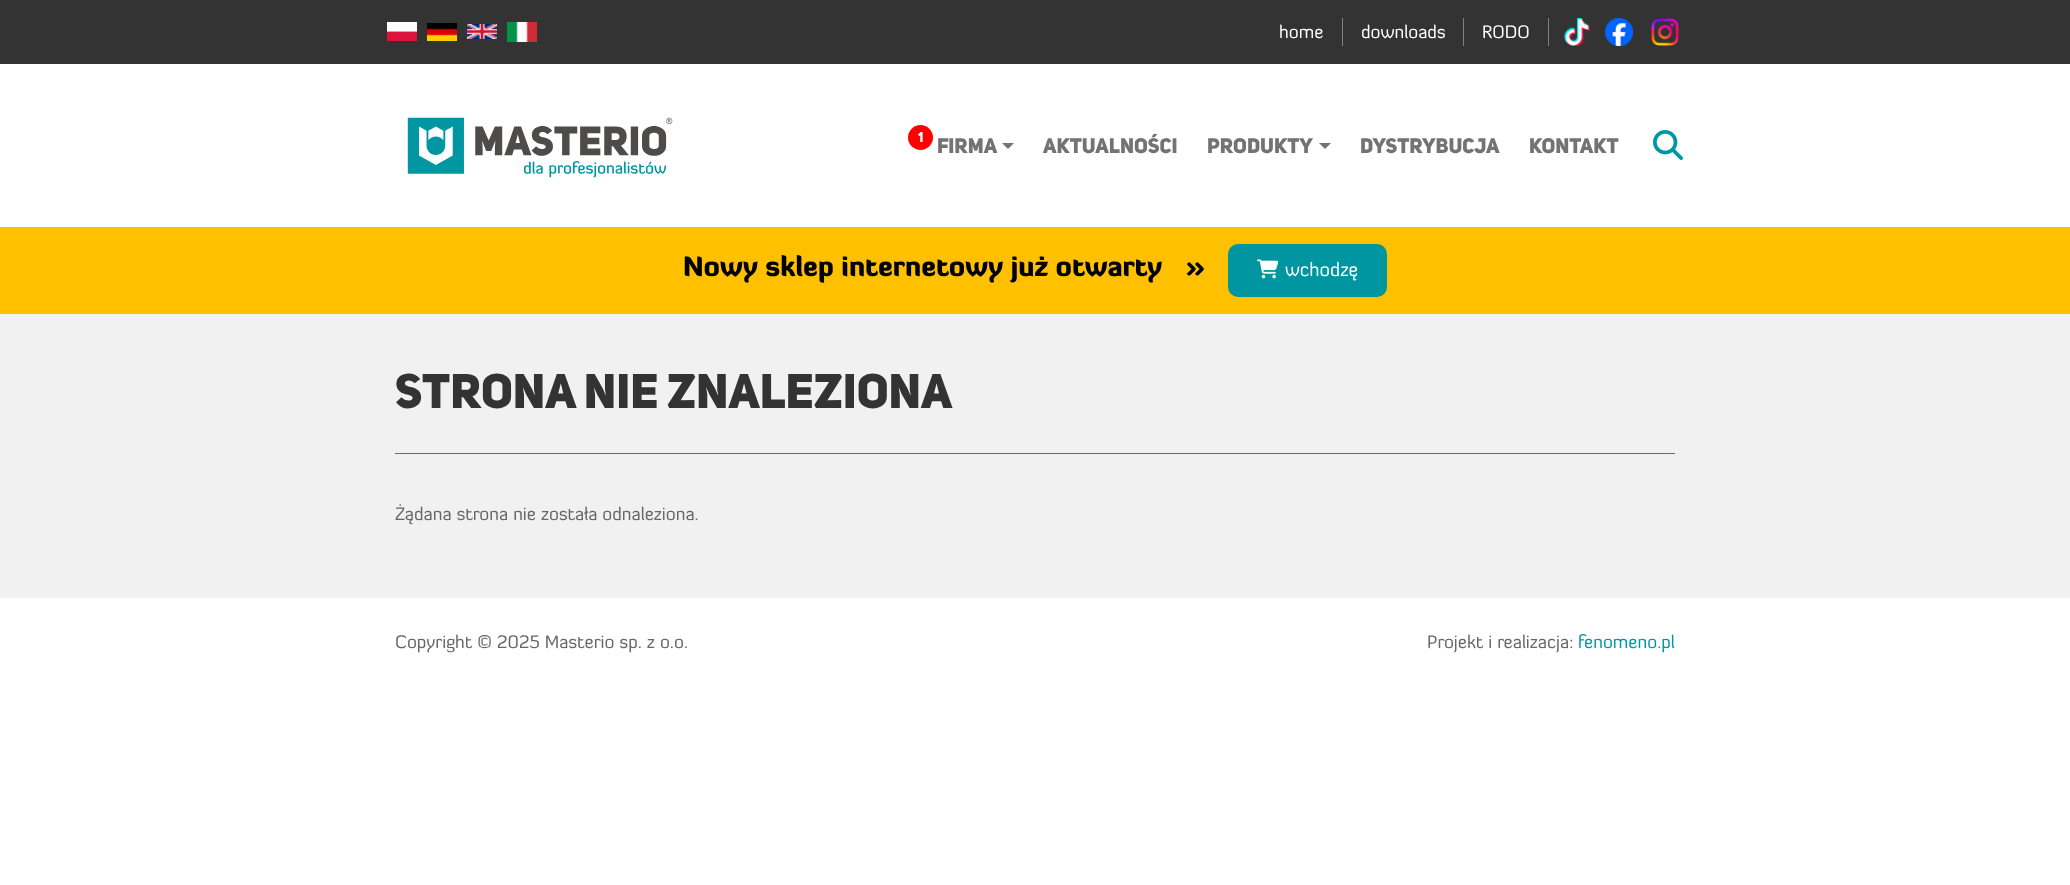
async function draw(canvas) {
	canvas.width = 2070;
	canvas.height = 885;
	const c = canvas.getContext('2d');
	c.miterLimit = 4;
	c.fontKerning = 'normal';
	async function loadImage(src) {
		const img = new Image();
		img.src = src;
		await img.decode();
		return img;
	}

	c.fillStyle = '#fff';
	c.fillRect(0, 0, 2070, 885);
	c.fillStyle = '#333';
	c.fillRect(0, 0, 2070, 64);
	c.drawImage(await loadImage('img1.png'), 387, 22, 30, 19);
	c.drawImage(await loadImage('img2.png'), 427, 23, 30, 18);
	c.drawImage(await loadImage('img3.png'), 467, 24, 30, 15);
	c.drawImage(await loadImage('img4.png'), 507, 22, 30, 20);
	c.fillStyle = '#808080';
	c.fillRect(1342, 18, 1, 28);
	c.font = '18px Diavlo';
	c.fillStyle = '#fff';
	c.fillText('home', 1279, 38);
	c.fillStyle = '#808080';
	c.fillRect(1463, 18, 1, 28);
	c.fillStyle = '#fff';
	c.fillText('downloads', 1361, 38);
	c.fillStyle = '#808080';
	c.fillRect(1548, 18, 1, 28);
	c.fillStyle = '#fff';
	c.fillText('RODO', 1482, 38);
	c.drawImage(await loadImage('img5.png'), 1564, 18, 26, 28);
	c.drawImage(await loadImage('img6.png'), 1605, 18, 28, 28);
	c.drawImage(await loadImage('img7.png'), 1651, 18, 28, 28);
	c.drawImage(await loadImage('img8.png'), 407, 117, 266, 61);
	c.fillStyle = '#f00';
	c.beginPath();
	c.arc(920.5, 137.5, 12.5, 0, 2 * Math.PI);
	c.fill();
	c.font = '900 14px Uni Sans';
	c.fillStyle = '#fff';
	c.fillText('1', 918, 142);
	c.font = '900 20.75px Uni Sans';
	c.fillStyle = '#737373';
	c.fillText('firma', 937, 153);
	c.beginPath();
	c.moveTo(1002, 143);
	c.lineTo(1014, 143);
	c.lineTo(1008, 149);
	c.closePath();
	c.fill();
	c.fillText('aktualności', 1043, 153);
	c.fillText('produkty', 1207, 153);
	c.beginPath();
	c.moveTo(1319, 143);
	c.lineTo(1331, 143);
	c.lineTo(1325, 149);
	c.closePath();
	c.fill();
	c.fillText('dystrybucja', 1360, 153);
	c.fillText('kontakt', 1529, 153);
	c.drawImage(await loadImage('img9.png'), 1653, 130, 30, 30);
	c.fillStyle = '#f1f1f1';
	c.fillRect(0, 314, 2070, 284);
	c.fillStyle = '#ffc000';
	c.fillRect(0, 227, 2070, 87);
	c.font = '900 27px Diavlo';
	c.fillStyle = '#000';
	c.fillText('Nowy sklep internetowy już otwarty   »', 683, 276);
	c.fillStyle = '#0096a1';
	c.beginPath();
	c.roundRect(1228, 244, 159, 53, 10);
	c.fill();
	c.drawImage(await loadImage('img10.png'), 1257, 259, 22, 20);
	c.font = '19px Diavlo';
	c.fillStyle = '#fff';
	c.fillText('wchodzę', 1285, 276);
	c.fillStyle = '#0096a1';
	c.fillRect(395, 453, 1280, 1);
	c.font = '900 48px Uni Sans';
	c.fillStyle = '#333';
	c.fillText('Strona nie znaleziona', 395, 408);
	c.font = '18px Diavlo';
	c.fillStyle = '#666';
	for (const [text, x, y] of [
		['Żądana strona nie została odnaleziona.', 395, 520],
		['Copyright © 2025 Masterio sp. z o.o.', 395, 648],
		['Projekt i realizacja:', 1427, 648],
	]) {
		c.fillText(text, x, y);
	}
	c.fillStyle = '#0096a1';
	c.fillText('fenomeno.pl', 1578, 648);
}

draw(document.querySelector('canvas'));
